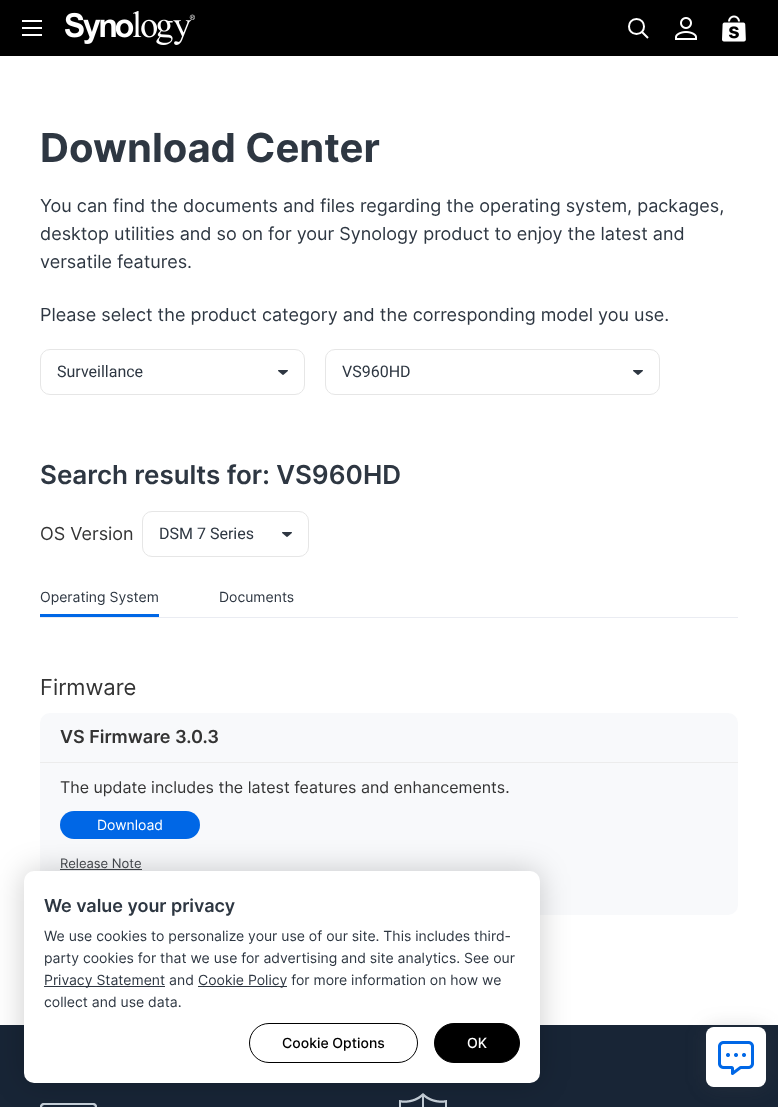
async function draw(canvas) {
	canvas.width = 778;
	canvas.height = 1107;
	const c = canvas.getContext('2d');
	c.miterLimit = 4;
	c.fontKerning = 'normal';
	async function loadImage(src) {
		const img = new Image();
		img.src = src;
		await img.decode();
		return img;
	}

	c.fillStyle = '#fff';
	c.fillRect(0, 0, 778, 1107);
	for (const [x, y, w, h, color] of [
		[0, 0, 778, 56, '#000'],
		[22, 20, 20, 2, '#fff'],
		[22, 27, 20, 2, '#fff'],
		[22, 34, 20, 2, '#fff'],
	]) {
		c.fillStyle = color;
		c.fillRect(x, y, w, h);
	}
	c.drawImage(await loadImage('img1.png'), 65, 11, 130, 34);
	c.beginPath();
	c.moveTo(636.5, 34);
	c.bezierCurveTo(646.5, 34, 646.5, 19, 636.5, 19);
	c.bezierCurveTo(626.5, 19, 626.5, 34, 636.5, 34);
	c.closePath();
	c.moveTo(642, 32);
	c.lineTo(648, 38);
	c.strokeStyle = '#fff';
	c.lineWidth = 2;
	c.stroke();
	c.drawImage(await loadImage('img2.png'), 675, 17, 22, 23);
	c.drawImage(await loadImage('img3.png'), 722, 15, 24, 27);
	c.font = 'bold 40px Inter';
	c.fillStyle = '#2e3742';
	c.fillText('Download Center', 40, 162);
	c.font = '18px Inter';
	for (const [text, x, y] of [
		['You can find the documents and files regarding the operating system, packages,', 40, 212],
		['desktop utilities and so on for your Synology product to enjoy the latest and', 40, 240],
		['versatile features.', 40, 268],
		['Please select the product category and the corresponding model you use.', 40, 321],
	]) {
		c.fillText(text, x, y);
	}
	c.beginPath();
	c.roundRect(40.5, 349.5, 264, 45, 9.5);
	c.strokeStyle = '#e6e6e6';
	c.lineWidth = 1;
	c.stroke();
	c.font = '16px Roboto';
	c.fillText('Surveillance', 57, 377);
	c.drawImage(await loadImage('img4.png'), 278, 370, 10, 5);
	c.beginPath();
	c.roundRect(325.5, 349.5, 334, 45, 9.5);
	c.stroke();
	c.fillText('VS960HD', 342, 377);
	c.drawImage(await loadImage('img4.png'), 633, 370, 10, 5);
	c.font = '600 26px Inter';
	c.fillText('Search results for: VS960HD', 40, 484);
	c.font = '18px Inter';
	c.fillStyle = '#343434';
	c.fillText('OS Version', 40, 540);
	c.beginPath();
	c.roundRect(142.5, 511.5, 166, 45, 9.5);
	c.stroke();
	c.font = '16px Roboto';
	c.fillStyle = '#2e3742';
	c.fillText('DSM 7 Series', 159, 539);
	c.drawImage(await loadImage('img4.png'), 282, 532, 10, 5);
	c.fillStyle = '#eaecf2';
	c.fillRect(40, 617, 698, 1);
	c.font = '14px Inter';
	c.fillStyle = '#2e3742';
	c.fillText('Operating System', 40, 602);
	c.fillStyle = '#0067e6';
	c.fillRect(40, 614, 119, 3);
	c.fillStyle = '#2e3742';
	c.fillText('Documents', 219, 602);
	c.font = '22px Inter';
	c.fillStyle = '#343434';
	c.fillText('Firmware', 40, 695);
	c.fillStyle = '#f8f9fb';
	c.beginPath();
	c.roundRect(40, 713, 698, 202, 10);
	c.fill();
	c.fillStyle = '#ececec';
	c.fillRect(40, 762, 698, 1);
	c.font = '600 18px Inter';
	c.fillStyle = '#343434';
	c.fillText('VS Firmware 3.0.3', 60, 743);
	c.font = '16px Inter';
	c.fillText('The update includes the latest features and enhancements.', 60, 793);
	c.fillStyle = '#0067e6';
	c.beginPath();
	c.roundRect(60, 811, 140, 28, 14);
	c.fill();
	c.font = '14px Inter';
	c.fillStyle = '#fff';
	c.fillText('Download', 97, 830);
	c.font = '13px Inter';
	c.fillStyle = '#44484d';
	c.fillText('Release Note', 60, 868);
	c.fillRect(60, 869, 82, 1);
	c.fillStyle = '#182536';
	c.fillRect(0, 1025, 778, 82);
	c.drawImage(await loadImage('img5.png'), 40, 1103, 57, 4);
	c.drawImage(await loadImage('img6.png'), 399, 1093, 48, 14);
	c.fillStyle = '#54545433';
	c.filter = 'blur(10px)';
	c.beginPath();
	c.roundRect(706, 1027, 60, 60, 8);
	c.fill();
	c.filter = 'none';
	c.fillStyle = '#fff';
	c.beginPath();
	c.roundRect(706, 1027, 60, 60, 8);
	c.fill();
	c.drawImage(await loadImage('img7.png'), 706, 1027, 60, 60);
	c.fillStyle = '#00000033';
	c.filter = 'blur(15px)';
	c.beginPath();
	c.roundRect(24, 871, 516, 212, 10);
	c.fill();
	c.filter = 'none';
	c.fillStyle = '#fff';
	c.beginPath();
	c.roundRect(24, 871, 516, 212, 10);
	c.fill();
	c.font = '600 18px Inter';
	c.fillStyle = '#2e3742';
	c.fillText('We value your privacy', 44, 912);
	c.font = '14px Inter';
	c.fillText('We use cookies to personalize your use of our site. This includes third-', 44, 941);
	c.fillText('party cookies for that we use for advertising and site analytics. See our', 44, 963);
	c.fillRect(44, 986, 121, 1);
	c.fillText('Privacy Statement and', 44, 985);
	c.fillRect(198, 986, 89, 1);
	c.fillText('Cookie Policy for more information on how we', 198, 985);
	c.fillText('collect and use data.', 44, 1007);
	c.beginPath();
	c.roundRect(249.5, 1023.5, 168, 39, 19.5);
	c.strokeStyle = '#000';
	c.stroke();
	c.font = '500 14px Inter';
	c.fillStyle = '#000';
	c.fillText('Cookie Options', 282, 1048);
	c.beginPath();
	c.roundRect(434.5, 1023.5, 85, 39, 19.5);
	c.fill();
	c.stroke();
	c.fillStyle = '#fff';
	c.fillText('OK', 467, 1048);
}

draw(document.querySelector('canvas'));
